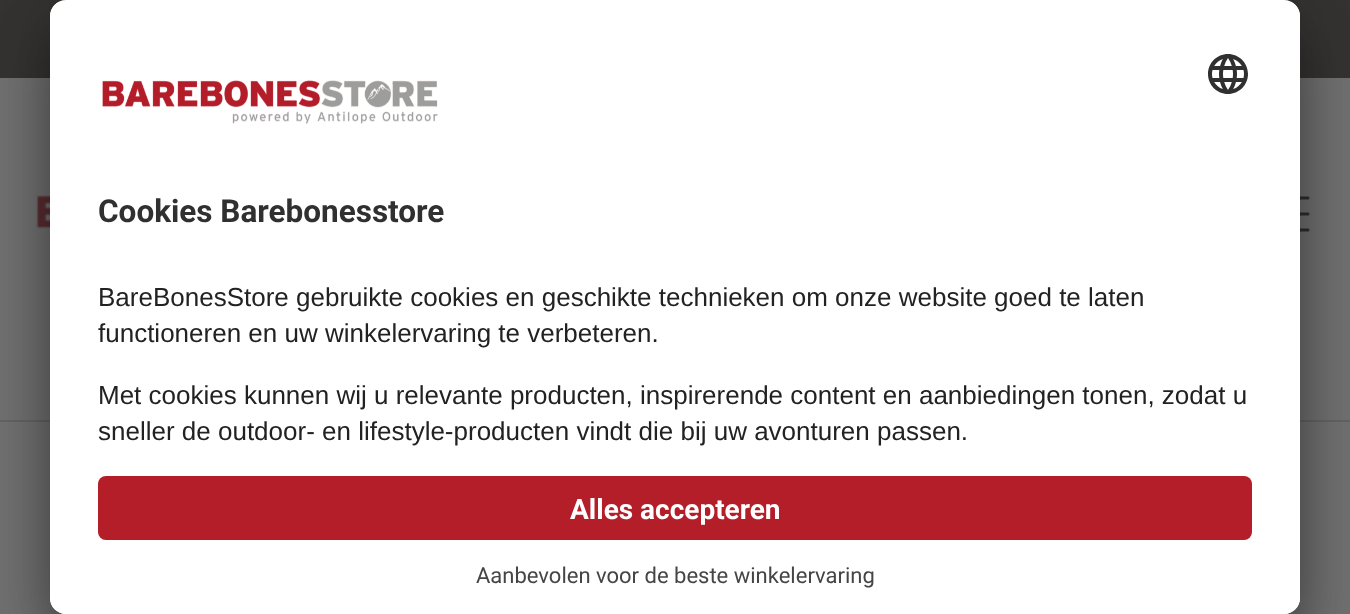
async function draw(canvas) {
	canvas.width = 1350;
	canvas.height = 614;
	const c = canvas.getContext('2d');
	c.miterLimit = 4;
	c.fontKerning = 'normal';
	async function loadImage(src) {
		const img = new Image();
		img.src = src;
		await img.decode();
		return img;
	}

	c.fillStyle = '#707070';
	c.fillRect(0, 0, 1350, 614);
	c.fillStyle = '#343332';
	c.fillRect(0, 0, 1350, 78);
	c.fillStyle = '#636363';
	c.fillRect(0, 420, 1350, 2);
	c.drawImage(await loadImage('img1.png'), 36, 195, 14, 34);
	c.beginPath();
	c.moveTo(1264, 214);
	c.lineTo(1308, 214);
	c.moveTo(1264, 198);
	c.lineTo(1308, 198);
	c.moveTo(1264, 230);
	c.lineTo(1308, 230);
	c.strokeStyle = '#2e2e2e';
	c.lineWidth = 3;
	c.lineCap = 'round';
	c.lineJoin = 'round';
	c.stroke();
	c.fillStyle = '#0000004d';
	c.filter = 'blur(28px)';
	c.beginPath();
	c.roundRect(50, 40, 1250, 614, 16);
	c.fill();
	c.filter = 'none';
	c.fillStyle = '#00000038';
	c.filter = 'blur(26px)';
	c.beginPath();
	c.roundRect(50, 10, 1250, 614, 16);
	c.fill();
	c.filter = 'none';
	c.fillStyle = '#fff';
	c.beginPath();
	c.roundRect(50, 0, 1250, 614, 16);
	c.fill();
	c.save();
	c.beginPath();
	c.roundRect(50, 0, 1250, 614, 16);
	c.clip();
	c.beginPath();
	c.roundRect(50, 0, 1250, 460, [16, 16, 0, 0]);
	c.clip();
	c.fillRect(50, 2, 1250, 458);
	c.restore();
	c.drawImage(await loadImage('img2.png'), 1208, 54, 40, 40);
	c.drawImage(await loadImage('img3.png'), 102, 80, 336, 44);
	c.font = 'bold 31.5px Roboto';
	c.fillStyle = '#303030';
	c.fillText('Cookies Barebonesstore', 98, 222);
	c.font = '26px Liberation Sans';
	c.fillStyle = '#222';
	for (const [text, x, y] of [
		['BareBonesStore gebruikte cookies en geschikte technieken om onze website goed te laten', 98, 306],
		['functioneren en uw winkelervaring te verbeteren.', 98, 342],
		['Met cookies kunnen wij u relevante producten, inspirerende content en aanbiedingen tonen, zodat u', 98, 404],
		['sneller de outdoor- en lifestyle-producten vindt die bij uw avonturen passen.', 98, 440],
	]) {
		c.fillText(text, x, y);
	}
	c.fillStyle = '#fff';
	c.beginPath();
	c.roundRect(50, 460, 1250, 154, [0, 0, 16, 16]);
	c.fill();
	c.fillStyle = '#b31e28';
	c.beginPath();
	c.roundRect(98, 476, 1154, 64, 8);
	c.fill();
	c.font = 'bold 28px Roboto';
	c.fillStyle = '#fff';
	c.fillText('Alles accepteren', 570, 519);
	c.font = '22px Roboto';
	c.fillStyle = '#454545';
	c.fillText('Aanbevolen voor de beste winkelervaring', 476, 583);
}

draw(document.querySelector('canvas'));
